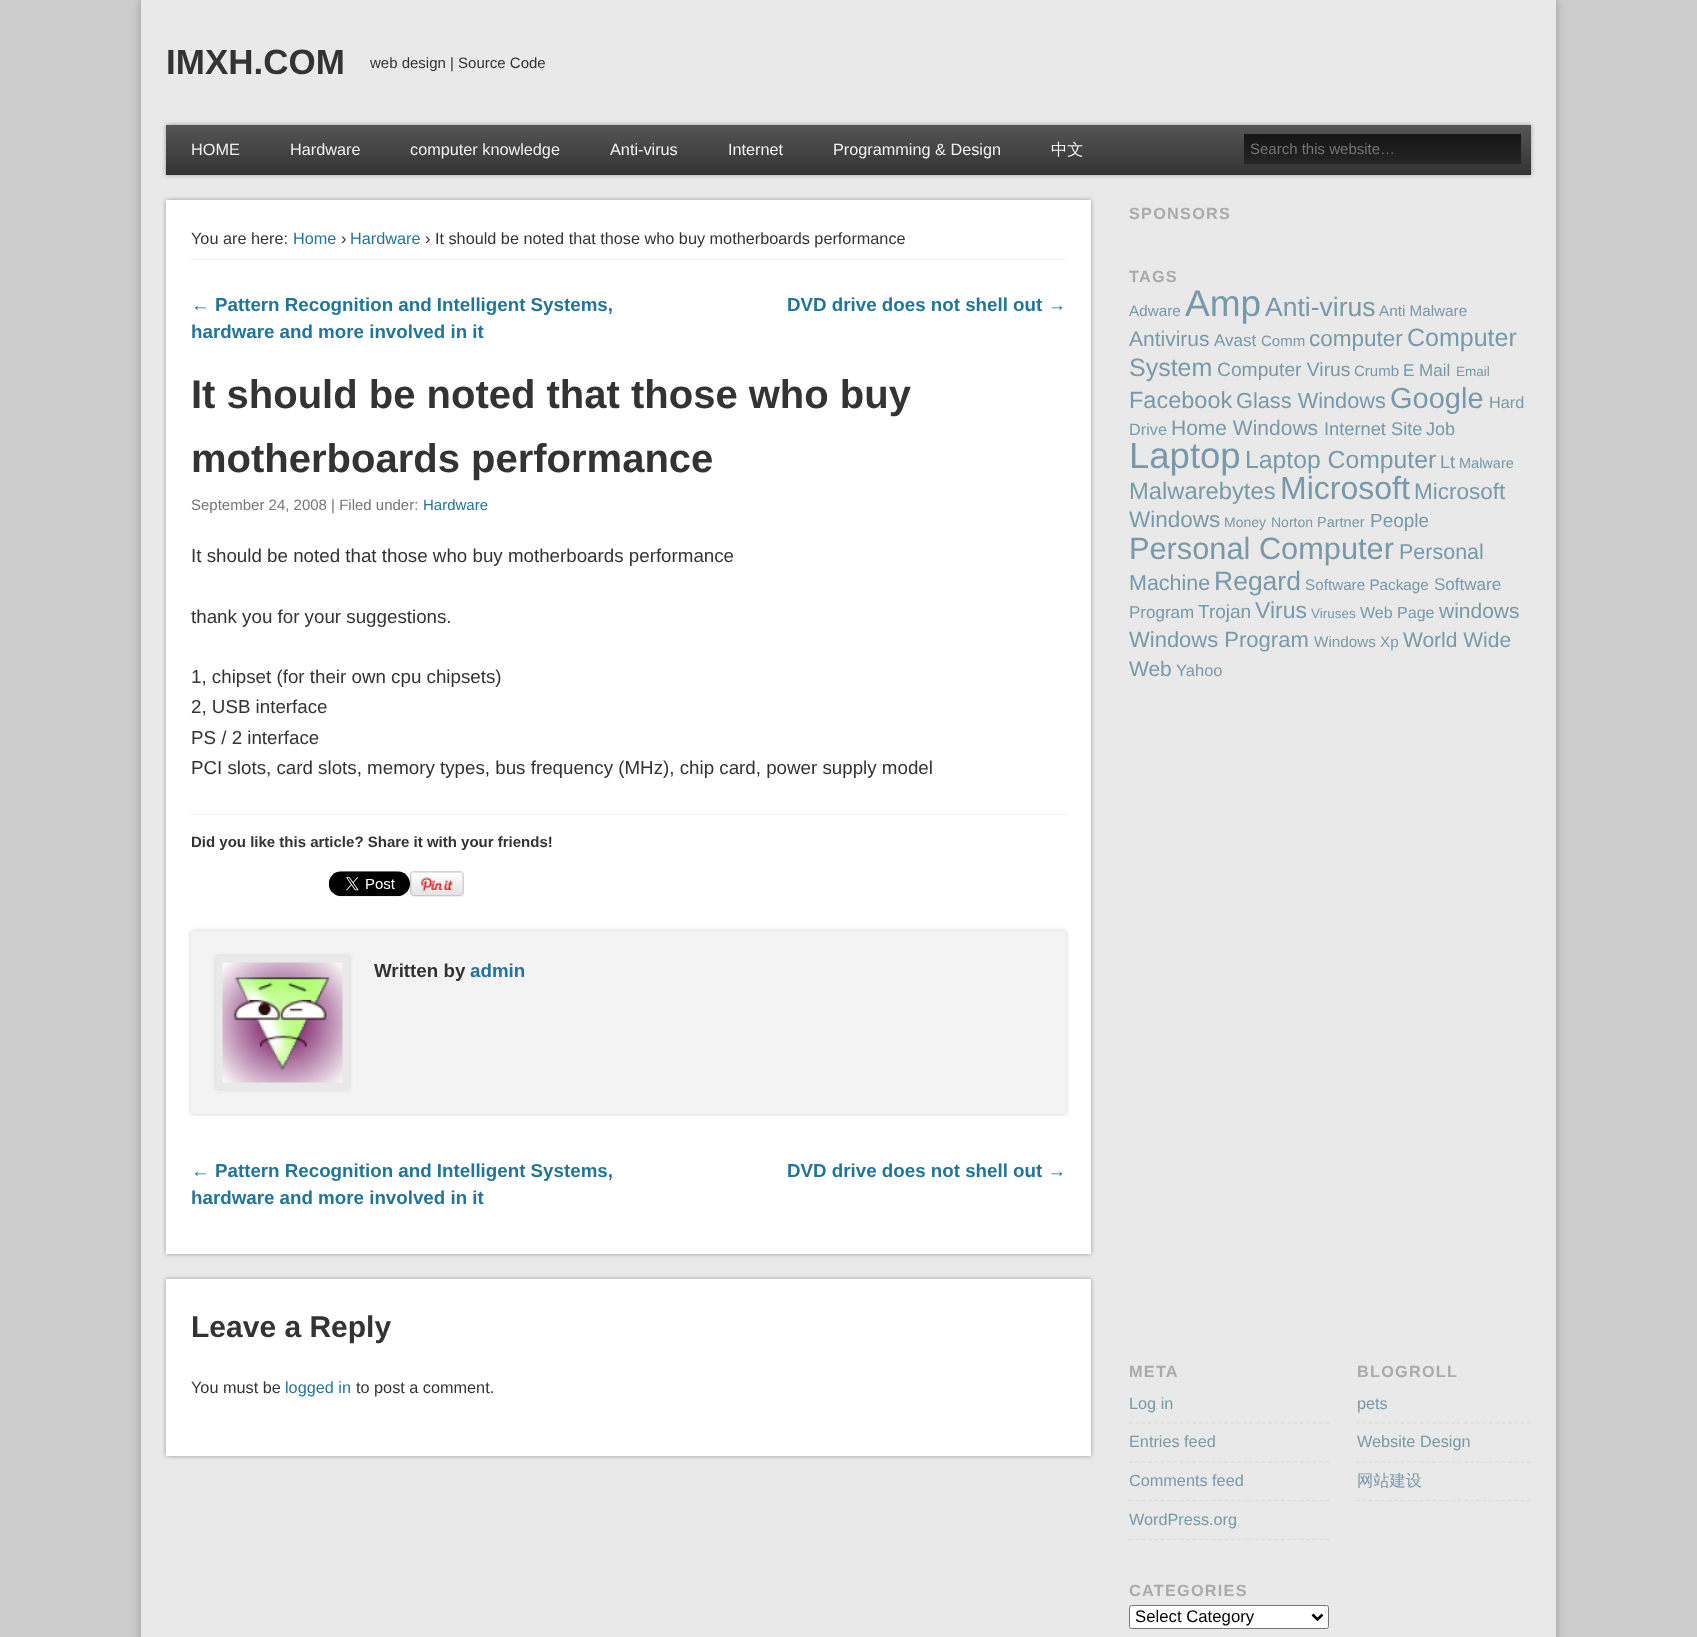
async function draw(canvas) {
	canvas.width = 1697;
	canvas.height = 1637;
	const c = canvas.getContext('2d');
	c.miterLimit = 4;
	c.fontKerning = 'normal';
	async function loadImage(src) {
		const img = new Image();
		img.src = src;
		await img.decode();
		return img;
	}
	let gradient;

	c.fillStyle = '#ccc';
	c.fillRect(0, 0, 1697, 1637);
	c.fillStyle = '#999';
	c.filter = 'blur(4px)';
	c.beginPath();
	c.rect(141, 0, 1415, 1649);
	c.fill();
	c.filter = 'none';
	c.fillStyle = '#e9e9e9';
	c.fillRect(141, 0, 1415, 1637);
	c.font = 'bold 35px Liberation Sans';
	c.fillStyle = '#333';
	c.fillText('IMXH.COM', 166, 74);
	c.font = '15px Liberation Sans';
	c.fillText('web design | Source Code', 370, 68);
	c.fillStyle = '#999';
	c.filter = 'blur(2px)';
	c.beginPath();
	c.rect(166, 125, 1365, 50);
	c.fill();
	c.filter = 'none';
	gradient = c.createLinearGradient(849, 125, 849, 225);
	gradient.addColorStop(0, '#555');
	gradient.addColorStop(0.5, '#333');
	gradient.addColorStop(0.5, '#555');
	gradient.addColorStop(1, '#333');
	c.fillStyle = gradient;
	c.fillRect(166, 125, 1365, 50);
	c.font = '16.25px Liberation Sans';
	c.fillStyle = '#f0f0f0';
	for (const [text, x, y] of [
		['HOME', 191, 155],
		['Hardware', 290, 155],
		['computer knowledge', 410, 155],
		['Anti-virus', 610, 155],
		['Internet', 728, 155],
		['Programming & Design', 833, 155],
	]) {
		c.fillText(text, x, y);
	}
	c.font = '500 16.25px WenQuanYi Zen Hei';
	c.fillText('中文', 1051, 155);
	gradient = c.createLinearGradient(1383, 134, 1383, 164);
	gradient.addColorStop(0, '#151515');
	gradient.addColorStop(1, '#252525');
	c.fillStyle = gradient;
	c.fillRect(1244, 134, 277, 30);
	c.font = '15px Liberation Sans';
	c.fillStyle = '#757575';
	c.fillText('Search this website…', 1250, 154);
	c.fillStyle = '#999';
	c.filter = 'blur(2px)';
	c.beginPath();
	c.rect(166, 200, 925, 1054);
	c.fill();
	c.filter = 'none';
	c.fillStyle = '#fff';
	c.fillRect(166, 200, 925, 1054);
	c.fillStyle = '#eee';
	c.fillRect(191, 259, 875, 1);
	c.font = '16.25px Liberation Sans';
	c.fillStyle = '#333';
	c.fillText('You are here:', 191, 244);
	c.fillStyle = '#21759b';
	c.fillText('Home', 293, 244);
	c.fillStyle = '#333';
	c.fillText('›', 341, 244);
	c.fillStyle = '#21759b';
	c.fillText('Hardware', 350, 244);
	c.fillStyle = '#333';
	c.fillText('› It should be noted that those who buy motherboards performance', 425, 244);
	c.font = 'bold 18.75px Liberation Sans';
	c.fillStyle = '#21759b';
	for (const [text, x, y] of [
		['← Pattern Recognition and Intelligent Systems,', 191, 311],
		['hardware and more involved in it', 191, 338],
		['DVD drive does not shell out →', 787, 311],
	]) {
		c.fillText(text, x, y);
	}
	c.font = 'bold 40px Liberation Sans';
	c.fillStyle = '#333';
	c.fillText('It should be noted that those who buy', 191, 408);
	c.fillText('motherboards performance', 191, 472);
	c.font = '15px Liberation Sans';
	c.fillStyle = '#757575';
	c.fillText('September 24, 2008 | Filed under:', 191, 510);
	c.fillStyle = '#21759b';
	c.fillText('Hardware', 423, 510);
	c.font = '18.75px Liberation Sans';
	c.fillStyle = '#333';
	for (const [text, x, y] of [
		['It should be noted that those who buy motherboards performance', 191, 562],
		['thank you for your suggestions.', 191, 623],
		['1, chipset (for their own cpu chipsets)', 191, 683],
		['2, USB interface', 191, 713],
		['PS / 2 interface', 191, 744],
		['PCI slots, card slots, memory types, bus frequency (MHz), chip card, power supply model', 191, 774],
	]) {
		c.fillText(text, x, y);
	}
	c.fillStyle = '#eee';
	c.fillRect(191, 814, 875, 1);
	c.font = 'bold 15px Liberation Sans';
	c.fillStyle = '#333';
	c.fillText('Did you like this article? Share it with your friends!', 191, 847);
	c.drawImage(await loadImage('img1.png'), 328, 871, 82, 26);
	c.drawImage(await loadImage('img2.png'), 410, 871, 54, 26);
	c.fillStyle = '#ccc';
	c.filter = 'blur(2px)';
	c.beginPath();
	c.rect(191, 931, 875, 183);
	c.fill();
	c.filter = 'none';
	c.fillStyle = '#f3f3f3';
	c.fillRect(191, 931, 875, 183);
	c.fillStyle = '#ccc';
	c.filter = 'blur(2px)';
	c.beginPath();
	c.rect(216, 956, 133, 133);
	c.fill();
	c.filter = 'none';
	c.fillStyle = '#e9e9e9';
	c.fillRect(216, 956, 133, 133);
	c.drawImage(await loadImage('img3.png'), 222, 962, 121, 121);
	c.font = 'bold 18.75px Liberation Sans';
	c.fillStyle = '#333';
	c.fillText('Written by', 374, 977);
	c.fillStyle = '#21759b';
	for (const [text, x, y] of [
		['admin', 470, 977],
		['← Pattern Recognition and Intelligent Systems,', 191, 1177],
		['hardware and more involved in it', 191, 1204],
		['DVD drive does not shell out →', 787, 1177],
	]) {
		c.fillText(text, x, y);
	}
	c.fillStyle = '#999';
	c.filter = 'blur(2px)';
	c.beginPath();
	c.rect(166, 1279, 925, 177);
	c.fill();
	c.filter = 'none';
	c.fillStyle = '#fff';
	c.fillRect(166, 1279, 925, 177);
	c.font = 'bold 30px Liberation Sans';
	c.fillStyle = '#333';
	c.fillText('Leave a Reply', 191, 1337);
	c.font = '16.25px Liberation Sans';
	c.fillText('You must be', 191, 1393);
	c.fillStyle = '#21759b';
	c.fillText('logged in', 285, 1393);
	c.fillStyle = '#333';
	c.fillText('to post a comment.', 356, 1393);
	c.letterSpacing = '1.25px';
	c.font = 'bold 16.25px Liberation Sans';
	c.fillStyle = '#aaa';
	c.fillText('SPONSORS', 1129, 219);
	c.fillText('TAGS', 1129, 282);
	c.letterSpacing = '0px';
	c.font = '15.25px Liberation Sans';
	c.fillStyle = '#79a';
	c.fillText('Adware', 1129, 316);
	c.font = '37px Liberation Sans';
	c.fillText('Amp', 1185, 316);
	c.font = '26.5px Liberation Sans';
	c.fillText('Anti-virus', 1265, 316);
	c.font = '15.25px Liberation Sans';
	c.fillText('Anti Malware', 1379, 316);
	c.font = '21px Liberation Sans';
	c.fillText('Antivirus', 1129, 346);
	c.font = '17px Liberation Sans';
	c.fillText('Avast', 1214, 346);
	c.font = '15px Liberation Sans';
	c.fillText('Comm', 1261, 346);
	c.font = '22.5px Liberation Sans';
	c.fillText('computer', 1309, 346);
	c.font = '25px Liberation Sans';
	c.fillText('Computer', 1407, 346);
	c.fillText('System', 1129, 376);
	c.font = '19.25px Liberation Sans';
	c.fillText('Computer Virus', 1217, 376);
	c.font = '15px Liberation Sans';
	c.fillText('Crumb', 1354, 376);
	c.font = '17px Liberation Sans';
	c.fillText('E Mail', 1403, 376);
	c.font = '13.5px Liberation Sans';
	c.fillText('Email', 1456, 376);
	c.font = '23.5px Liberation Sans';
	c.fillText('Facebook', 1129, 408);
	c.font = '21.75px Liberation Sans';
	c.fillText('Glass Windows', 1236, 408);
	c.font = '29px Liberation Sans';
	c.fillText('Google', 1390, 408);
	c.font = '16.25px Liberation Sans';
	c.fillText('Hard', 1489, 408);
	c.fillText('Drive', 1129, 435);
	c.font = '21px Liberation Sans';
	c.fillText('Home Windows', 1171, 435);
	c.font = '18.25px Liberation Sans';
	c.fillText('Internet Site', 1324, 435);
	c.font = '18px Liberation Sans';
	c.fillText('Job', 1426, 435);
	c.font = '36.5px Liberation Sans';
	c.fillText('Laptop', 1129, 468);
	c.font = '24.75px Liberation Sans';
	c.fillText('Laptop Computer', 1245, 468);
	c.font = '18px Liberation Sans';
	c.fillText('Lt', 1440, 468);
	c.font = '14.5px Liberation Sans';
	c.fillText('Malware', 1459, 468);
	c.font = '23.75px Liberation Sans';
	c.fillText('Malwarebytes', 1129, 499);
	c.font = '32px Liberation Sans';
	c.fillText('Microsoft', 1280, 499);
	c.font = '22.5px Liberation Sans';
	c.fillText('Microsoft', 1414, 499);
	c.fillText('Windows', 1129, 527);
	c.font = '14px Liberation Sans';
	c.fillText('Money', 1224, 527);
	c.fillText('Norton', 1271, 527);
	c.font = '14.5px Liberation Sans';
	c.fillText('Partner', 1317, 527);
	c.font = '19px Liberation Sans';
	c.fillText('People', 1370, 527);
	c.font = '30.75px Liberation Sans';
	c.fillText('Personal Computer', 1129, 559);
	c.font = '21.5px Liberation Sans';
	c.fillText('Personal', 1399, 559);
	c.fillText('Machine', 1129, 590);
	c.font = '26.5px Liberation Sans';
	c.fillText('Regard', 1214, 590);
	c.font = '15.25px Liberation Sans';
	c.fillText('Software Package', 1305, 590);
	c.font = '17px Liberation Sans';
	c.fillText('Software', 1434, 590);
	c.fillText('Program', 1129, 618);
	c.font = '19px Liberation Sans';
	c.fillText('Trojan', 1198, 618);
	c.font = '23px Liberation Sans';
	c.fillText('Virus', 1255, 618);
	c.font = '13.5px Liberation Sans';
	c.fillText('Viruses', 1311, 618);
	c.font = '16px Liberation Sans';
	c.fillText('Web Page', 1360, 618);
	c.font = '21px Liberation Sans';
	c.fillText('windows', 1439, 618);
	c.font = '22px Liberation Sans';
	c.fillText('Windows Program', 1129, 647);
	c.font = '15.25px Liberation Sans';
	c.fillText('Windows Xp', 1314, 647);
	c.font = '21px Liberation Sans';
	c.fillText('World Wide', 1403, 647);
	c.fillText('Web', 1129, 676);
	c.font = '16.5px Liberation Sans';
	c.fillText('Yahoo', 1176, 676);
	c.letterSpacing = '1.25px';
	c.font = 'bold 16.25px Liberation Sans';
	c.fillStyle = '#aaa';
	c.fillText('META', 1129, 1377);
	c.beginPath();
	c.moveTo(1129, 1423);
	c.lineTo(1329, 1423);
	c.strokeStyle = '#d9d9d9';
	c.lineWidth = 1.2;
	c.setLineDash([3.75, 2.58]);
	c.stroke();
	c.letterSpacing = '0px';
	c.font = '16.25px Liberation Sans';
	c.fillStyle = '#79a';
	c.fillText('Log in', 1129, 1409);
	c.beginPath();
	c.moveTo(1129, 1462);
	c.lineTo(1329, 1462);
	c.stroke();
	c.fillText('Entries feed', 1129, 1447);
	c.beginPath();
	c.moveTo(1129, 1500.5);
	c.lineTo(1329, 1500.5);
	c.stroke();
	c.fillText('Comments feed', 1129, 1486);
	c.save();
	c.beginPath();
	c.rect(1129, 1385, 200, 155);
	c.clip();
	c.beginPath();
	c.moveTo(1129, 1539.5);
	c.lineTo(1329, 1539.5);
	c.stroke();
	c.restore();
	c.fillText('WordPress.org', 1129, 1525);
	c.letterSpacing = '1.25px';
	c.font = 'bold 16.25px Liberation Sans';
	c.fillStyle = '#aaa';
	c.fillText('CATEGORIES', 1129, 1596);
	c.fillStyle = '#fff';
	c.beginPath();
	c.roundRect(1129.5, 1605.5, 199, 23, 2);
	c.fill();
	c.strokeStyle = '#767676';
	c.lineWidth = 1;
	c.setLineDash([]);
	c.stroke();
	c.beginPath();
	c.moveTo(1312.5, 1614.5);
	c.lineTo(1317.5, 1619.5);
	c.lineTo(1322.5, 1614.5);
	c.strokeStyle = '#000';
	c.lineWidth = 2.5;
	c.stroke();
	c.letterSpacing = '0px';
	c.font = '16.75px Liberation Sans';
	c.fillStyle = '#000';
	c.fillText('Select Category', 1135, 1622);
	c.letterSpacing = '1.25px';
	c.font = 'bold 16.25px Liberation Sans';
	c.fillStyle = '#aaa';
	c.fillText('BLOGROLL', 1357, 1377);
	c.beginPath();
	c.moveTo(1356, 1423);
	c.lineTo(1531, 1423);
	c.strokeStyle = '#d9d9d9';
	c.lineWidth = 1.2;
	c.setLineDash([3.75, 2.59]);
	c.stroke();
	c.letterSpacing = '0px';
	c.font = '16.25px Liberation Sans';
	c.fillStyle = '#79a';
	c.fillText('pets', 1357, 1409);
	c.beginPath();
	c.moveTo(1356, 1462);
	c.lineTo(1531, 1462);
	c.stroke();
	c.fillText('Website Design', 1357, 1447);
	c.save();
	c.beginPath();
	c.rect(1356, 1385, 175, 116);
	c.clip();
	c.beginPath();
	c.moveTo(1356, 1500.5);
	c.lineTo(1531, 1500.5);
	c.stroke();
	c.restore();
	c.font = '500 16.25px WenQuanYi Zen Hei';
	c.fillText('网站建设', 1357, 1486);
}

draw(document.querySelector('canvas'));
